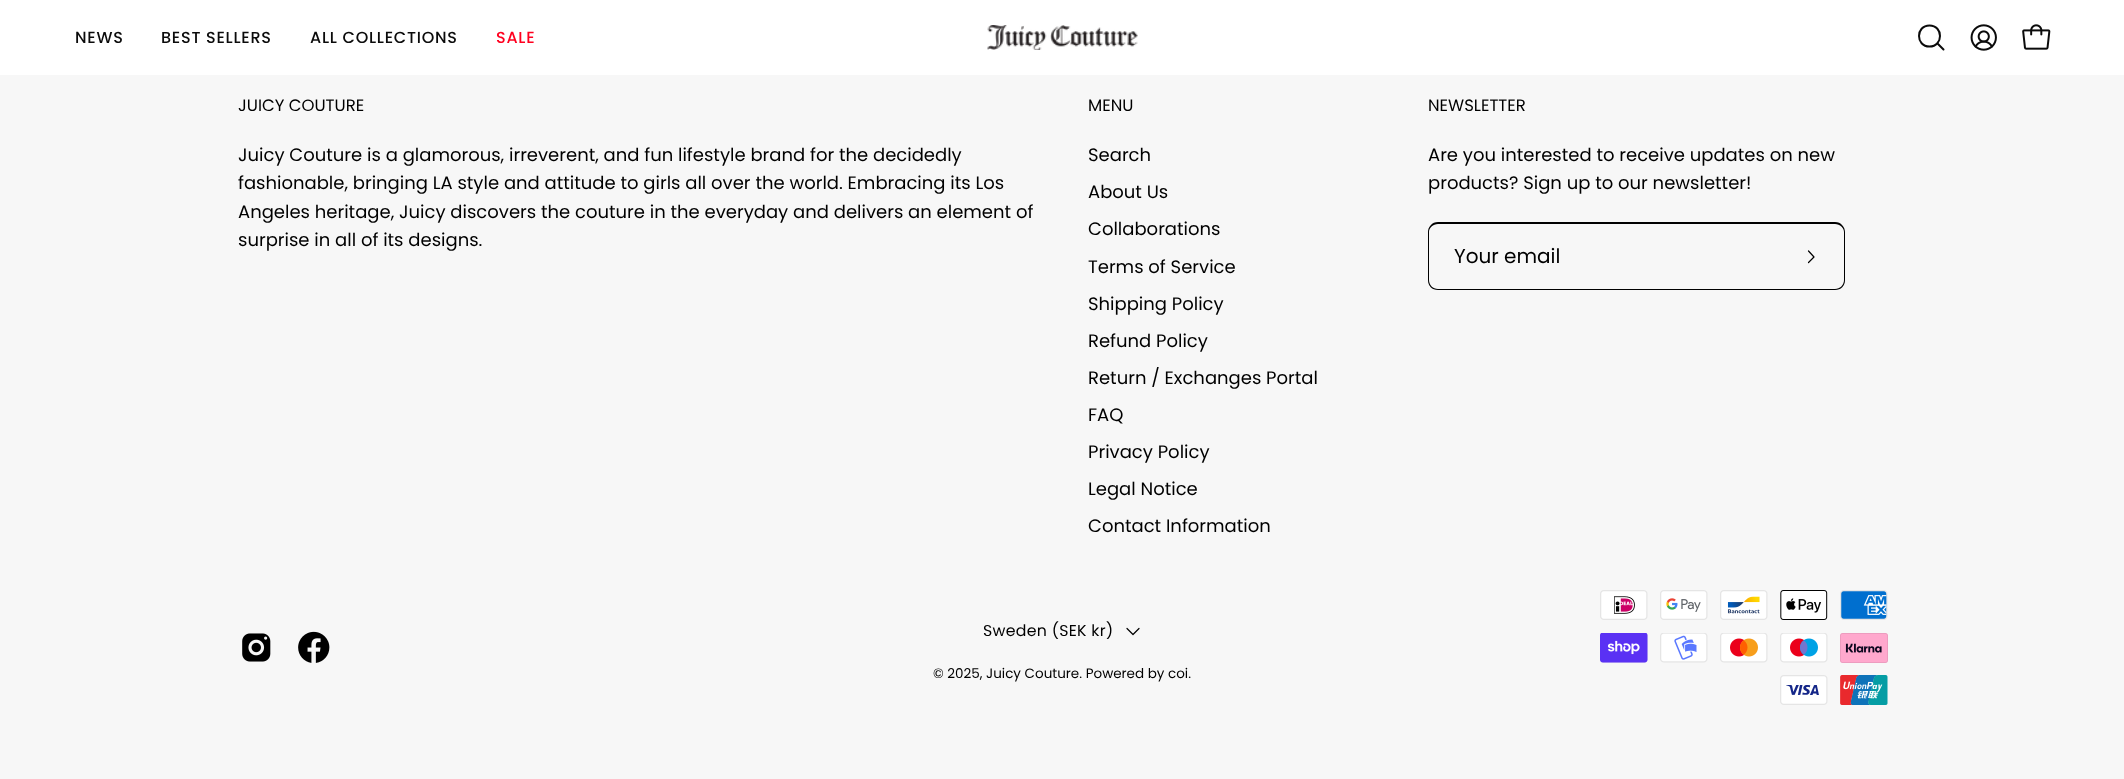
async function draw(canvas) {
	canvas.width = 2124;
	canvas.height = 779;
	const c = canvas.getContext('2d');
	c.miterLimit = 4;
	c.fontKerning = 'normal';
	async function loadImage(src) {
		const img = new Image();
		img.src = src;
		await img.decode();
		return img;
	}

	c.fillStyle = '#f7f7f7';
	c.fillRect(0, 0, 2124, 779);
	c.fillStyle = '#fff';
	c.fillRect(0, 0, 2124, 75);
	c.letterSpacing = '0.75px';
	c.font = '500 16px Poppins';
	c.fillStyle = '#0b0b0b';
	for (const [text, x, y] of [
		['NEWS', 75, 43],
		['BEST SELLERS', 161, 43],
		['ALL COLLECTIONS', 310, 43],
	]) {
		c.fillText(text, x, y);
	}
	c.fillStyle = '#ff001f';
	c.fillText('SALE', 496, 43);
	c.beginPath();
	c.moveTo(1929.5, 46.5);
	c.bezierCurveTo(1943.5, 46.5, 1943.5, 25.5, 1929.5, 25.5);
	c.bezierCurveTo(1915.5, 25.5, 1915.5, 46.5, 1929.5, 46.5);
	c.closePath();
	c.moveTo(1937.5, 43.5);
	c.lineTo(1943.5, 49.5);
	c.strokeStyle = '#0b0b0b';
	c.lineWidth = 2;
	c.lineCap = 'round';
	c.lineJoin = 'round';
	c.stroke();
	c.drawImage(await loadImage('img1.png'), 1970, 24, 27, 27);
	c.drawImage(await loadImage('img2.png'), 2022, 24, 29, 26);
	c.drawImage(await loadImage('img3.png'), 987, 25, 151, 25);
	c.letterSpacing = '0px';
	c.font = '16.5px Poppins';
	c.fillStyle = '#000';
	c.fillText('JUICY COUTURE', 238, 111);
	c.font = '18px Poppins';
	for (const [text, x, y] of [
		['Juicy Couture is a glamorous, irreverent, and fun lifestyle brand for the decidedly', 238, 161],
		['fashionable, bringing LA style and attitude to girls all over the world. Embracing its Los', 238, 189],
		['Angeles heritage, Juicy discovers the couture in the everyday and delivers an element of', 238, 218],
		['surprise in all of its designs.', 238, 246],
	]) {
		c.fillText(text, x, y);
	}
	c.font = '16.5px Poppins';
	c.fillText('MENU', 1088, 111);
	c.font = '18px Poppins';
	for (const [text, x, y] of [
		['Search', 1088, 161],
		['About Us', 1088, 198],
		['Collaborations', 1088, 235],
		['Terms of Service', 1088, 273],
		['Shipping Policy', 1088, 310],
		['Refund Policy', 1088, 347],
		['Return / Exchanges Portal', 1088, 384],
		['FAQ', 1088, 421],
		['Privacy Policy', 1088, 458],
		['Legal Notice', 1088, 495],
		['Contact Information', 1088, 532],
	]) {
		c.fillText(text, x, y);
	}
	c.font = '16.5px Poppins';
	c.fillText('NEWSLETTER', 1428, 111);
	c.font = '18px Poppins';
	c.fillText('Are you interested to receive updates on new', 1428, 161);
	c.fillText('products? Sign up to our newsletter!', 1428, 189);
	c.beginPath();
	c.moveTo(1438, 222);
	c.lineTo(1778, 222);
	c.lineTo(1778, 290);
	c.lineTo(1438, 290);
	c.bezierCurveTo(1432, 290, 1428, 286, 1428, 280);
	c.lineTo(1428, 232);
	c.bezierCurveTo(1428, 227, 1432, 222, 1438, 222);
	c.closePath();
	c.moveTo(1438, 224);
	c.lineTo(1778, 224);
	c.lineTo(1778, 289);
	c.lineTo(1438, 289);
	c.bezierCurveTo(1433, 289, 1429, 285, 1429, 280);
	c.lineTo(1429, 232);
	c.bezierCurveTo(1429, 228, 1433, 224, 1438, 224);
	c.closePath();
	c.fill('evenodd');
	c.font = '20px Poppins';
	c.fillText('Your email', 1454, 263);
	c.beginPath();
	c.moveTo(1778, 222);
	c.lineTo(1835, 222);
	c.bezierCurveTo(1841, 222, 1845, 227, 1845, 232);
	c.lineTo(1845, 280);
	c.bezierCurveTo(1845, 286, 1841, 290, 1835, 290);
	c.lineTo(1778, 290);
	c.closePath();
	c.moveTo(1778, 224);
	c.lineTo(1835, 224);
	c.bezierCurveTo(1840, 224, 1844, 228, 1844, 232);
	c.lineTo(1844, 280);
	c.bezierCurveTo(1844, 285, 1840, 289, 1835, 289);
	c.lineTo(1778, 289);
	c.closePath();
	c.fill('evenodd');
	c.beginPath();
	c.moveTo(1808.5, 251);
	c.lineTo(1814, 257);
	c.lineTo(1808.5, 262.5);
	c.strokeStyle = '#000';
	c.lineWidth = 1.2;
	c.stroke();
	c.drawImage(await loadImage('img4.png'), 242, 633, 29, 29);
	c.drawImage(await loadImage('img5.png'), 298, 631, 32, 32);
	c.letterSpacing = '0.3px';
	c.font = '15.75px Poppins';
	c.fillText('Sweden (SEK kr)', 983, 636);
	c.beginPath();
	c.moveTo(1139, 628.5);
	c.lineTo(1133, 634.5);
	c.lineTo(1127, 628.5);
	c.stroke();
	c.letterSpacing = '0px';
	c.font = '13.5px Poppins';
	c.fillText('© 2025, Juicy Couture. Powered by coi.', 933, 678);
	c.drawImage(await loadImage('img6.png'), 1600, 590, 48, 30);
	c.drawImage(await loadImage('img7.png'), 1660, 590, 48, 30);
	c.drawImage(await loadImage('img8.png'), 1720, 590, 48, 30);
	c.drawImage(await loadImage('img9.png'), 1780, 590, 48, 30);
	c.drawImage(await loadImage('img10.png'), 1840, 590, 48, 30);
	c.drawImage(await loadImage('img11.png'), 1600, 633, 48, 30);
	c.drawImage(await loadImage('img12.png'), 1660, 633, 48, 30);
	c.drawImage(await loadImage('img13.png'), 1720, 633, 48, 30);
	c.drawImage(await loadImage('img14.png'), 1780, 633, 48, 30);
	c.drawImage(await loadImage('img15.png'), 1840, 633, 48, 30);
	c.drawImage(await loadImage('img16.png'), 1780, 675, 48, 30);
	c.drawImage(await loadImage('img17.png'), 1840, 675, 48, 30);
}

draw(document.querySelector('canvas'));
